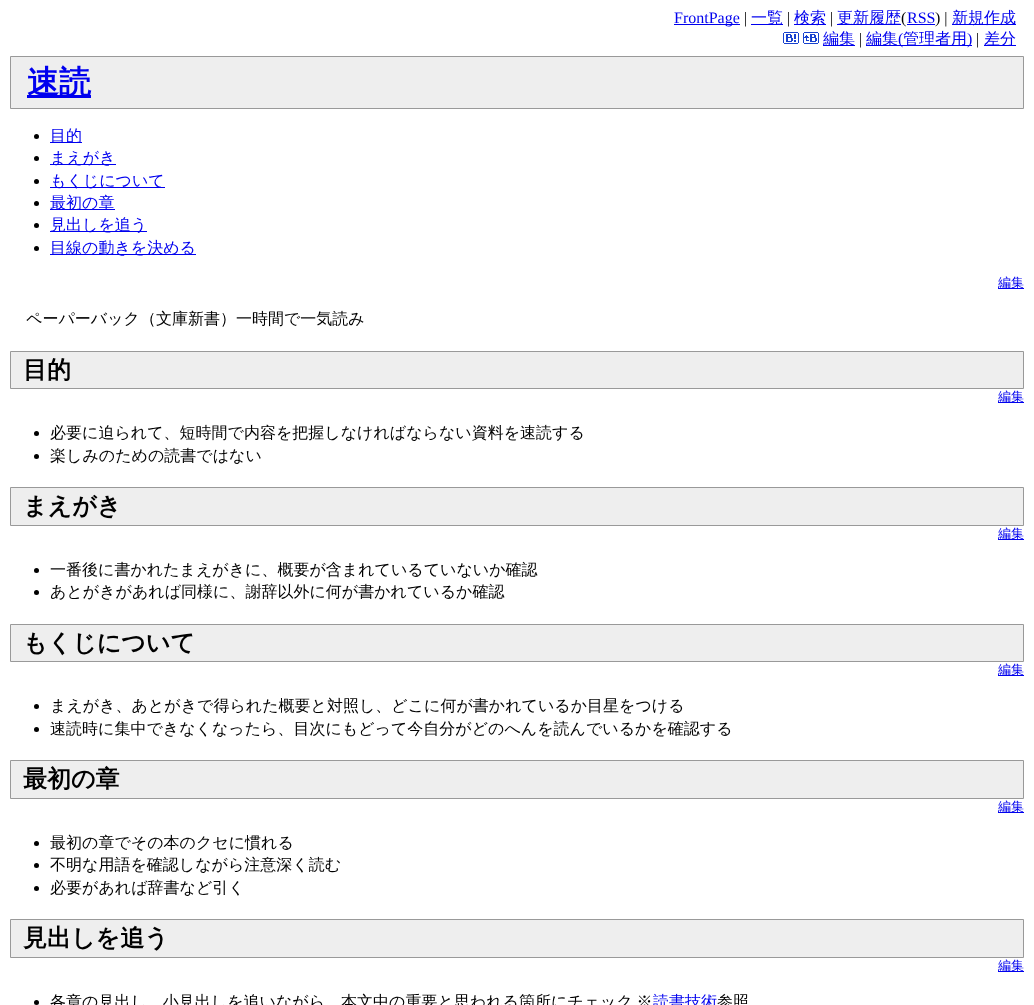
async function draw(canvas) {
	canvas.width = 1034;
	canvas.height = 1005;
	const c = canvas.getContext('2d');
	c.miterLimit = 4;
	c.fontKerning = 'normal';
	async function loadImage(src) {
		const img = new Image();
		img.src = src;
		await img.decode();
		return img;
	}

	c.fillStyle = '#fff';
	c.fillRect(0, 0, 1034, 1005);
	c.fillStyle = '#00e';
	c.fillRect(674, 24, 66, 1);
	c.font = '16px Liberation Serif';
	c.fillText('FrontPage', 674, 23);
	c.fillStyle = '#000';
	c.fillText('|', 744, 23);
	c.fillStyle = '#00e';
	c.fillRect(751, 24, 32, 1);
	c.font = '500 16px WenQuanYi Zen Hei';
	c.fillText('一覧', 751, 23);
	c.font = '16px Liberation Serif';
	c.fillStyle = '#000';
	c.fillText('|', 787, 23);
	c.fillStyle = '#00e';
	c.fillRect(794, 24, 32, 1);
	c.font = '500 16px WenQuanYi Zen Hei';
	c.fillText('検索', 794, 23);
	c.font = '16px Liberation Serif';
	c.fillStyle = '#000';
	c.fillText('|', 830, 23);
	c.fillStyle = '#00e';
	c.fillRect(837, 24, 64, 1);
	c.font = '500 16px WenQuanYi Zen Hei';
	c.fillText('更新履歴', 837, 23);
	c.font = '16px Liberation Serif';
	c.fillStyle = '#000';
	c.fillText('(', 901, 23);
	c.fillStyle = '#00e';
	c.fillText('RSS', 907, 23);
	c.fillRect(907, 24, 28, 1);
	c.fillStyle = '#000';
	c.fillText(') |', 935, 23);
	c.fillStyle = '#00e';
	c.fillRect(952, 24, 64, 1);
	c.font = '500 16px WenQuanYi Zen Hei';
	c.fillText('新規作成', 952, 23);
	c.drawImage(await loadImage('img1.png'), 783, 32, 16, 12);
	c.drawImage(await loadImage('img2.png'), 803, 32, 16, 12);
	c.fillRect(823, 45, 32, 1);
	c.fillText('編集', 823, 44);
	c.font = '16px Liberation Serif';
	c.fillStyle = '#000';
	c.fillText('|', 859, 44);
	c.fillStyle = '#00e';
	c.fillRect(866, 45, 106, 1);
	c.font = '500 16px WenQuanYi Zen Hei';
	c.fillText('編集', 866, 44);
	c.font = '16px Liberation Serif';
	c.fillText('(', 898, 44);
	c.font = '500 16px WenQuanYi Zen Hei';
	c.fillText('管理者用', 903, 44);
	c.font = '16px Liberation Serif';
	c.fillText(')', 967, 44);
	c.fillStyle = '#000';
	c.fillText('|', 976, 44);
	c.fillStyle = '#00e';
	c.fillRect(984, 45, 32, 1);
	c.font = '500 16px WenQuanYi Zen Hei';
	c.fillText('差分', 984, 44);
	c.fillStyle = '#eee';
	c.beginPath();
	c.rect(10.5, 56.5, 1013, 52);
	c.fill();
	c.strokeStyle = '#999';
	c.stroke();
	c.fillStyle = '#00e';
	c.fillRect(27, 95, 64, 3);
	c.font = 'bold 32px WenQuanYi Zen Hei';
	c.fillText('速読', 27, 93);
	c.fillStyle = '#000';
	c.beginPath();
	c.arc(36.5, 136.5, 2.5, 0, 2 * Math.PI);
	c.fill();
	c.fillStyle = '#00e';
	c.fillRect(50, 142, 32, 1);
	c.font = '500 16px WenQuanYi Zen Hei';
	c.fillText('目的', 50, 141);
	c.fillStyle = '#000';
	c.beginPath();
	c.arc(36.5, 158.5, 2.5, 0, 2 * Math.PI);
	c.fill();
	c.fillStyle = '#00e';
	c.fillRect(50, 164, 66, 1);
	c.fillText('まえがき', 50, 163);
	c.fillStyle = '#000';
	c.beginPath();
	c.arc(36.5, 181.5, 2.5, 0, 2 * Math.PI);
	c.fill();
	c.fillStyle = '#00e';
	c.fillRect(50, 187, 115, 1);
	c.fillText('もくじについて', 50, 186);
	c.fillStyle = '#000';
	c.beginPath();
	c.arc(36.5, 203.5, 2.5, 0, 2 * Math.PI);
	c.fill();
	c.fillStyle = '#00e';
	c.fillRect(50, 209, 65, 1);
	c.fillText('最初の章', 50, 208);
	c.fillStyle = '#000';
	c.beginPath();
	c.arc(36.5, 225.5, 2.5, 0, 2 * Math.PI);
	c.fill();
	c.fillStyle = '#00e';
	c.fillRect(50, 231, 97, 1);
	c.fillText('見出しを追う', 50, 230);
	c.fillStyle = '#000';
	c.beginPath();
	c.arc(36.5, 248.5, 2.5, 0, 2 * Math.PI);
	c.fill();
	c.fillStyle = '#00e';
	c.fillRect(50, 254, 146, 1);
	c.fillText('目線の動きを決める', 50, 253);
	c.fillRect(998, 288, 26, 1);
	c.font = '500 13px WenQuanYi Zen Hei';
	c.fillText('編集', 998, 287);
	c.font = '500 16px WenQuanYi Zen Hei';
	c.fillStyle = '#000';
	c.fillText('ペーパーバック（文庫新書）一時間で一気読み', 26, 324);
	c.fillStyle = '#eee';
	c.beginPath();
	c.rect(10.5, 351.5, 1013, 37);
	c.fill();
	c.stroke();
	c.font = 'bold 24px WenQuanYi Zen Hei';
	c.fillStyle = '#000';
	c.fillText('目的', 23, 378);
	c.fillStyle = '#00e';
	c.fillRect(998, 402, 26, 1);
	c.font = '500 13px WenQuanYi Zen Hei';
	c.fillText('編集', 998, 401);
	c.fillStyle = '#000';
	c.beginPath();
	c.arc(36.5, 433.5, 2.5, 0, 2 * Math.PI);
	c.fill();
	c.font = '500 16px WenQuanYi Zen Hei';
	c.fillText('必要に迫られて、短時間で内容を把握しなければならない資料を速読する', 50, 438);
	c.beginPath();
	c.arc(36.5, 456.5, 2.5, 0, 2 * Math.PI);
	c.fill();
	c.fillText('楽しみのための読書ではない', 50, 461);
	c.fillStyle = '#eee';
	c.beginPath();
	c.rect(10.5, 487.5, 1013, 38);
	c.fill();
	c.stroke();
	c.font = 'bold 24px WenQuanYi Zen Hei';
	c.fillStyle = '#000';
	c.fillText('まえがき', 23, 514);
	c.fillStyle = '#00e';
	c.fillRect(998, 539, 26, 1);
	c.font = '500 13px WenQuanYi Zen Hei';
	c.fillText('編集', 998, 538);
	c.fillStyle = '#000';
	c.beginPath();
	c.arc(36.5, 570.5, 2.5, 0, 2 * Math.PI);
	c.fill();
	c.font = '500 16px WenQuanYi Zen Hei';
	c.fillText('一番後に書かれたまえがきに、概要が含まれているていないか確認', 50, 575);
	c.beginPath();
	c.arc(36.5, 592.5, 2.5, 0, 2 * Math.PI);
	c.fill();
	c.fillText('あとがきがあれば同様に、謝辞以外に何が書かれているか確認', 50, 597);
	c.fillStyle = '#eee';
	c.beginPath();
	c.rect(10.5, 624.5, 1013, 37);
	c.fill();
	c.stroke();
	c.font = 'bold 24px WenQuanYi Zen Hei';
	c.fillStyle = '#000';
	c.fillText('もくじについて', 23, 651);
	c.fillStyle = '#00e';
	c.fillRect(998, 675, 26, 1);
	c.font = '500 13px WenQuanYi Zen Hei';
	c.fillText('編集', 998, 674);
	c.fillStyle = '#000';
	c.beginPath();
	c.arc(36.5, 706.5, 2.5, 0, 2 * Math.PI);
	c.fill();
	c.font = '500 16px WenQuanYi Zen Hei';
	c.fillText('まえがき、あとがきで得られた概要と対照し、どこに何が書かれているか目星をつける', 50, 711);
	c.beginPath();
	c.arc(36.5, 729.5, 2.5, 0, 2 * Math.PI);
	c.fill();
	c.fillText('速読時に集中できなくなったら、目次にもどって今自分がどのへんを読んでいるかを確認する', 50, 734);
	c.fillStyle = '#eee';
	c.beginPath();
	c.rect(10.5, 760.5, 1013, 38);
	c.fill();
	c.stroke();
	c.font = 'bold 24px WenQuanYi Zen Hei';
	c.fillStyle = '#000';
	c.fillText('最初の章', 23, 787);
	c.fillStyle = '#00e';
	c.fillRect(998, 812, 26, 1);
	c.font = '500 13px WenQuanYi Zen Hei';
	c.fillText('編集', 998, 811);
	c.fillStyle = '#000';
	c.beginPath();
	c.arc(36.5, 843.5, 2.5, 0, 2 * Math.PI);
	c.fill();
	c.font = '500 16px WenQuanYi Zen Hei';
	c.fillText('最初の章でその本のクセに慣れる', 50, 848);
	c.beginPath();
	c.arc(36.5, 865.5, 2.5, 0, 2 * Math.PI);
	c.fill();
	c.fillText('不明な用語を確認しながら注意深く読む', 50, 870);
	c.beginPath();
	c.arc(36.5, 888.5, 2.5, 0, 2 * Math.PI);
	c.fill();
	c.fillText('必要があれば辞書など引く', 50, 893);
	c.fillStyle = '#eee';
	c.beginPath();
	c.rect(10.5, 919.5, 1013, 38);
	c.fill();
	c.stroke();
	c.font = 'bold 24px WenQuanYi Zen Hei';
	c.fillStyle = '#000';
	c.fillText('見出しを追う', 23, 946);
	c.fillStyle = '#00e';
	c.fillRect(998, 971, 26, 1);
	c.font = '500 13px WenQuanYi Zen Hei';
	c.fillText('編集', 998, 970);
	c.fillStyle = '#000';
	c.beginPath();
	c.arc(36.5, 1002.5, 2.5, 0, 2 * Math.PI);
	c.fill();
	c.wordSpacing = '-1px';
	c.font = '500 16px WenQuanYi Zen Hei';
	c.fillText('各章の見出し、小見出しを追いながら、本文中の重要と思われる箇所にチェック ※', 50, 1007);
	c.wordSpacing = '0px';
	c.fillStyle = '#00e';
	c.fillText('読書技術', 653, 1007);
	c.fillStyle = '#000';
	c.fillText('参照', 717, 1007);
}

draw(document.querySelector('canvas'));
